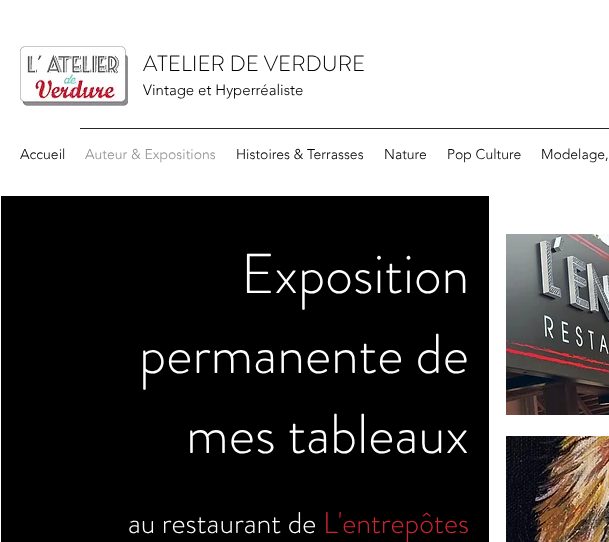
async function draw(canvas) {
	canvas.width = 609;
	canvas.height = 542;
	const c = canvas.getContext('2d');
	c.miterLimit = 4;
	c.fontKerning = 'normal';
	async function loadImage(src) {
		const img = new Image();
		img.src = src;
		await img.decode();
		return img;
	}

	c.fillStyle = '#fff';
	c.fillRect(0, 0, 609, 542);
	c.drawImage(await loadImage('img1.png'), 20, 46, 108, 60);
	c.font = '300 22px "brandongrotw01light"';
	c.fillStyle = '#000';
	c.fillText('ATELIER DE VERDURE', 143, 71);
	c.font = '300 15px "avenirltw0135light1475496"';
	c.fillText('Vintage et Hyperréaliste', 143, 95);
	c.fillStyle = '#262626';
	c.fillRect(80, 128, 529, 1);
	c.font = '300 14px "avenirltw0135light1475496"';
	c.fillStyle = '#000';
	c.fillText('Accueil', 20, 159);
	c.fillStyle = '#918f92';
	c.fillText('Auteur & Expositions', 85, 159);
	c.fillStyle = '#000';
	for (const [text, x, y] of [
		['Histoires & Terrasses', 236, 159],
		['Nature', 384, 159],
		['Pop Culture', 447, 159],
		['Modelage,', 541, 159],
	]) {
		c.fillText(text, x, y);
	}
	c.fillRect(1, 196, 488, 346);
	c.font = '300 56px "brandongrotw01light"';
	c.fillStyle = '#fff';
	for (const [text, x, y] of [
		['Exposition', 241, 293],
		['permanente de', 139, 373],
		['mes tableaux', 186, 453],
	]) {
		c.fillText(text, x, y);
	}
	c.font = '300 30px "brandongrotw01light"';
	c.fillText('au restaurant de', 128, 533);
	c.fillStyle = '#ce2332';
	c.fillText('L\'entrepôtes', 323, 533);
	c.drawImage(await loadImage('img2.png'), 506, 234, 103, 181);
	c.drawImage(await loadImage('img3.png'), 506, 436, 103, 106);
}

draw(document.querySelector('canvas'));
